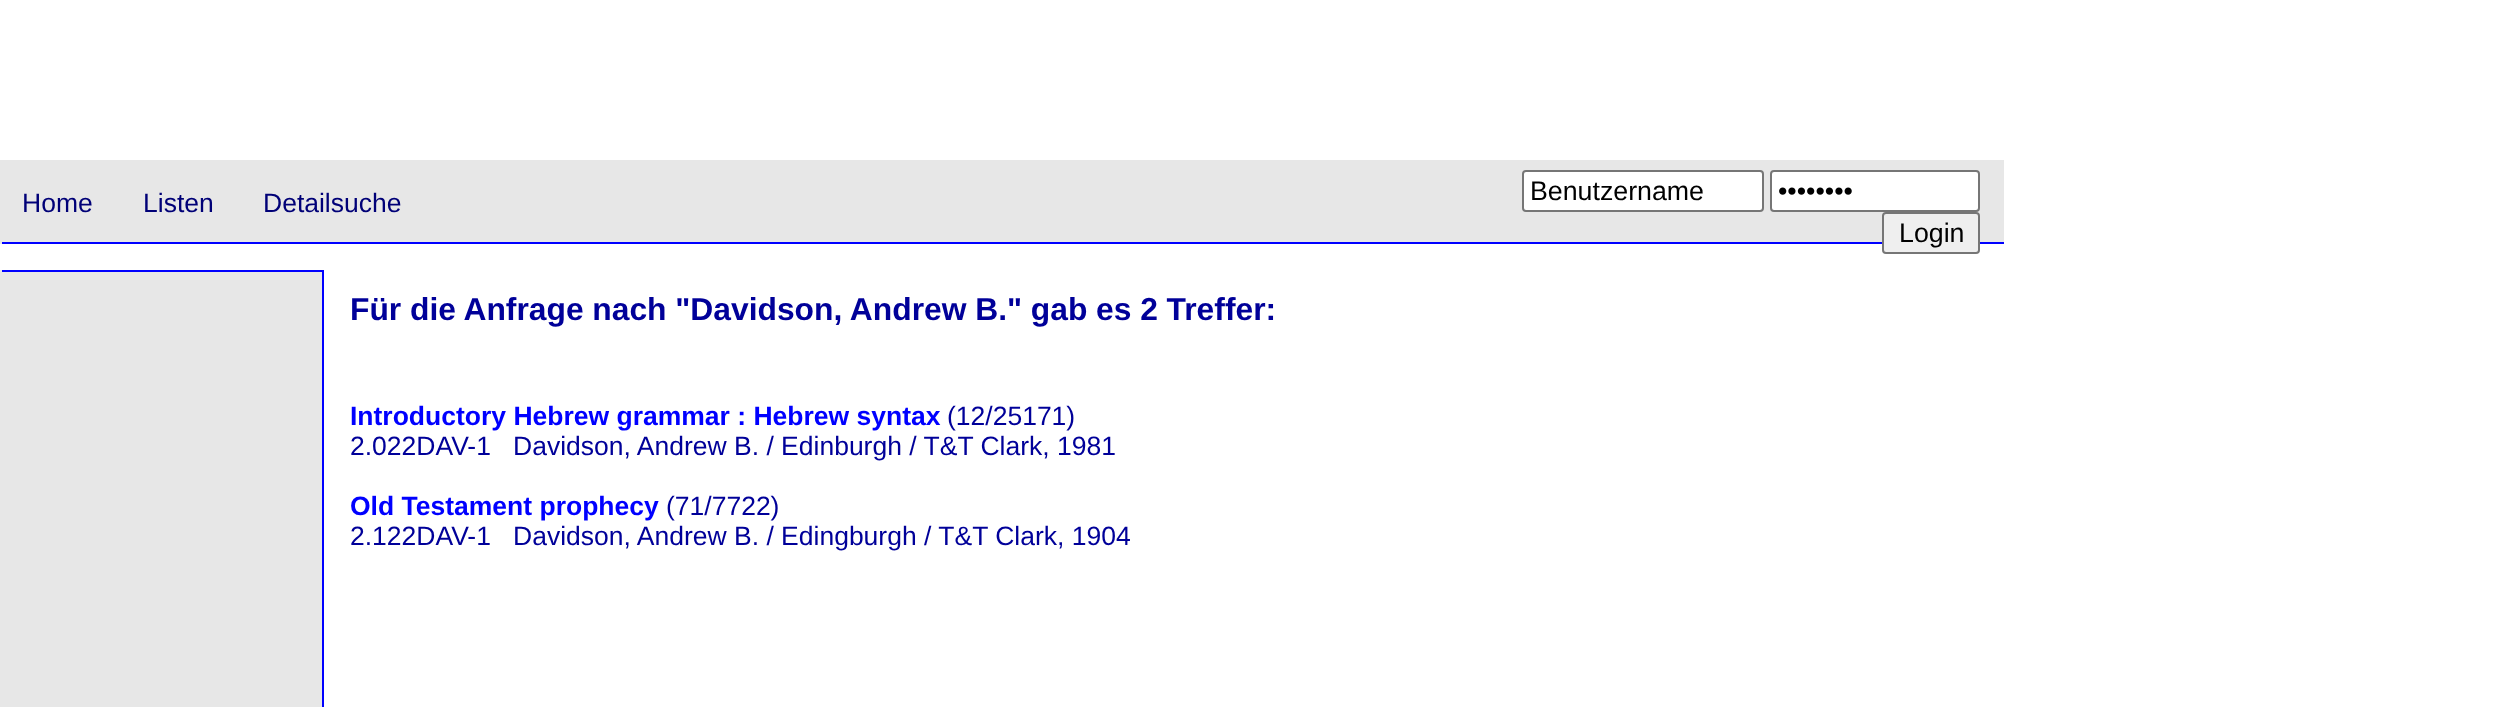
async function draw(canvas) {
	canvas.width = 2500;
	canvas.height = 707;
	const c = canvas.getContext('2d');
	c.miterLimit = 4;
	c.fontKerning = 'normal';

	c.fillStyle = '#fff';
	c.fillRect(0, 0, 2500, 707);
	for (const [x, y, w, h, color] of [
		[2, 160, 2002, 82, '#e7e7e7'],
		[0, 242, 2004, 2, '#00f'],
		[0, 160, 2, 84, '#e7e7e7'],
	]) {
		c.fillStyle = color;
		c.fillRect(x, y, w, h);
	}
	c.font = '26.5px Liberation Sans';
	c.fillStyle = '#007';
	for (const [text, x, y] of [
		['Home', 22, 212],
		['Listen', 143, 212],
		['Detailsuche', 263, 212],
	]) {
		c.fillText(text, x, y);
	}
	c.fillStyle = '#fff';
	c.beginPath();
	c.roundRect(1523, 171, 240, 40, 3);
	c.fill();
	c.strokeStyle = '#767676';
	c.lineWidth = 2;
	c.stroke();
	c.font = '26.75px Liberation Sans';
	c.fillStyle = '#000';
	c.fillText('Benutzername', 1530, 200);
	c.fillStyle = '#fff';
	c.beginPath();
	c.roundRect(1771, 171, 208, 40, 3);
	c.fill();
	c.stroke();
	c.fillStyle = '#000';
	c.fillText('••••••••', 1778, 200);
	c.fillStyle = '#efefef';
	c.beginPath();
	c.roundRect(1883, 213, 96, 40, 3);
	c.fill();
	c.stroke();
	c.fillStyle = '#000';
	c.fillText('Login', 1899, 242);
	for (const [x, y, w, h, color] of [
		[2, 272, 320, 435, '#e7e7e7'],
		[0, 270, 324, 2, '#00f'],
		[322, 270, 2, 437, '#00f'],
		[0, 270, 2, 437, '#e7e7e7'],
	]) {
		c.fillStyle = color;
		c.fillRect(x, y, w, h);
	}
	c.wordSpacing = '-0.1px';
	c.font = 'bold 31.8px Liberation Sans';
	c.fillStyle = '#009';
	c.fillText('Für die Anfrage nach "Davidson, Andrew B." gab es 2 Treffer:', 350, 320);
	c.wordSpacing = '0px';
	c.font = 'bold 26.5px Liberation Sans';
	c.fillStyle = '#00f';
	c.fillText('Introductory Hebrew grammar : Hebrew syntax', 350, 425);
	c.font = '26.5px Liberation Sans';
	c.fillStyle = '#009';
	c.fillText('(12/25171)', 947, 425);
	c.fillText('2.022DAV-1   Davidson, Andrew B. / Edinburgh / T&T Clark, 1981', 350, 455);
	c.font = 'bold 26.5px Liberation Sans';
	c.fillStyle = '#00f';
	c.fillText('Old Testament prophecy', 350, 515);
	c.font = '26.5px Liberation Sans';
	c.fillStyle = '#009';
	c.fillText('(71/7722)', 666, 515);
	c.fillText('2.122DAV-1   Davidson, Andrew B. / Edingburgh / T&T Clark, 1904', 350, 545);
}

draw(document.querySelector('canvas'));
